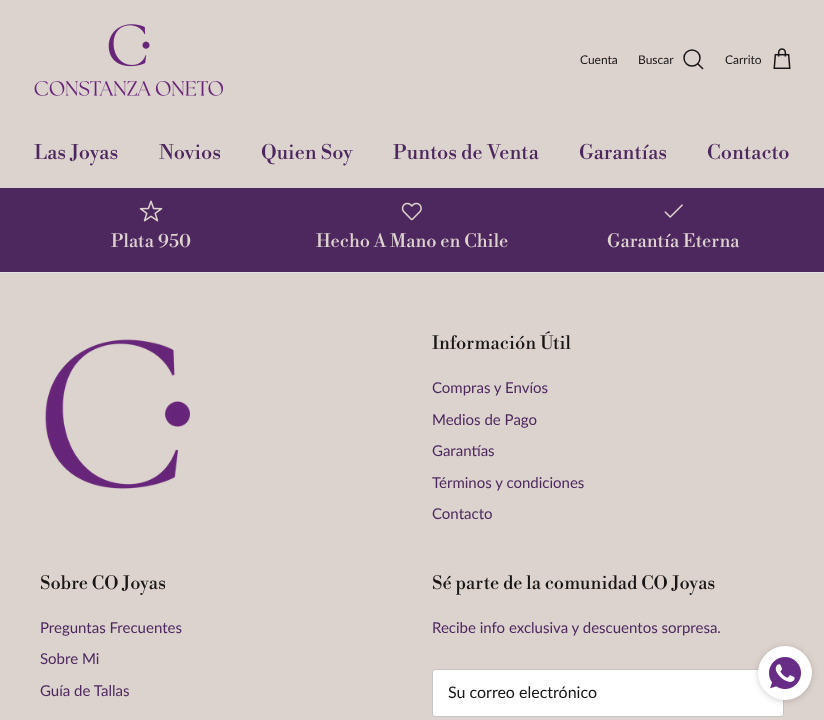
async function draw(canvas) {
	canvas.width = 824;
	canvas.height = 720;
	const c = canvas.getContext('2d');
	c.miterLimit = 4;
	c.fontKerning = 'normal';
	async function loadImage(src) {
		const img = new Image();
		img.src = src;
		await img.decode();
		return img;
	}

	c.fillStyle = '#4d285f';
	c.fillRect(0, 0, 824, 720);
	c.fillStyle = '#ddd3ce';
	c.fillRect(0, 0, 824, 188);
	c.drawImage(await loadImage('img1.png'), 34, 24, 190, 72);
	c.font = '12px Lato';
	c.fillStyle = '#171717';
	c.fillText('Cuenta', 580, 64);
	c.fillText('Buscar', 638, 64);
	c.beginPath();
	c.arc(692, 58, 8, 0, 2 * Math.PI);
	c.strokeStyle = '#171717';
	c.lineWidth = 1.5;
	c.stroke();
	c.beginPath();
	c.moveTo(698, 64);
	c.lineTo(702.5, 68.5);
	c.lineCap = 'square';
	c.stroke();
	c.fillText('Carrito', 725, 64);
	c.drawImage(await loadImage('img2.png'), 773, 48, 18, 21);
	c.font = '20px Libre Bodoni';
	c.fillStyle = '#4d285f';
	for (const [text, x, y] of [
		['Las Joyas', 34, 159],
		['Novios', 159, 159],
		['Quien Soy', 261, 159],
		['Puntos de Venta', 393, 159],
		['Garantías', 579, 159],
		['Contacto', 707, 159],
	]) {
		c.fillText(text, x, y);
	}
	c.drawImage(await loadImage('img3.png'), 139, 200, 24, 22);
	c.font = '18.25px Libre Bodoni';
	c.fillStyle = '#ddd3ce';
	c.fillText('Plata 950', 111, 247);
	c.drawImage(await loadImage('img4.png'), 401, 202, 21, 19);
	c.fillText('Hecho A Mano en Chile', 316, 247);
	c.drawImage(await loadImage('img5.png'), 664, 204, 19, 14);
	c.fillText('Garantía Eterna', 607, 247);
	c.fillRect(0, 273, 824, 447);
	c.fillStyle = '#e4e2e8';
	c.fillRect(0, 272, 824, 1);
	c.drawImage(await loadImage('img6.png'), 45, 339, 145, 150);
	c.fillStyle = '#171717';
	c.fillText('Información Útil', 432, 349);
	c.font = '15px Lato';
	c.fillStyle = '#4d285f';
	for (const [text, x, y] of [
		['Compras y Envíos', 432, 393],
		['Medios de Pago', 432, 425],
		['Garantías', 432, 456],
		['Términos y condiciones', 432, 488],
		['Contacto', 432, 519],
	]) {
		c.fillText(text, x, y);
	}
	c.font = '18.25px Libre Bodoni';
	c.fillStyle = '#171717';
	c.fillText('Sobre CO Joyas', 40, 589);
	c.font = '15px Lato';
	c.fillStyle = '#4d285f';
	for (const [text, x, y] of [
		['Preguntas Frecuentes', 40, 633],
		['Sobre Mi', 40, 664],
		['Guía de Tallas', 40, 696],
	]) {
		c.fillText(text, x, y);
	}
	c.font = '18.25px Libre Bodoni';
	c.fillStyle = '#171717';
	c.fillText('Sé parte de la comunidad CO Joyas', 432, 589);
	c.font = '15px Lato';
	c.fillStyle = '#4d285f';
	c.fillText('Recibe info exclusiva y descuentos sorpresa.', 432, 633);
	c.fillStyle = '#fff';
	c.beginPath();
	c.roundRect(432.5, 669.5, 351, 47, 2.5);
	c.fill();
	c.strokeStyle = '#c5c5c5';
	c.lineWidth = 1;
	c.stroke();
	c.font = '16px Lato';
	c.fillStyle = '#171717';
	c.fillText('Su correo electrónico', 448, 698);
	c.fillStyle = '#1b1b1b33';
	c.filter = 'blur(3px)';
	c.beginPath();
	c.roundRect(758, 647, 54, 54, 27);
	c.fill();
	c.filter = 'none';
	c.fillStyle = '#fff';
	c.beginPath();
	c.arc(785, 673, 26.5, 0, 2 * Math.PI);
	c.fill();
	c.strokeStyle = '#fff';
	c.stroke();
	c.drawImage(await loadImage('img7.png'), 769, 657, 32, 32);
}

draw(document.querySelector('canvas'));
